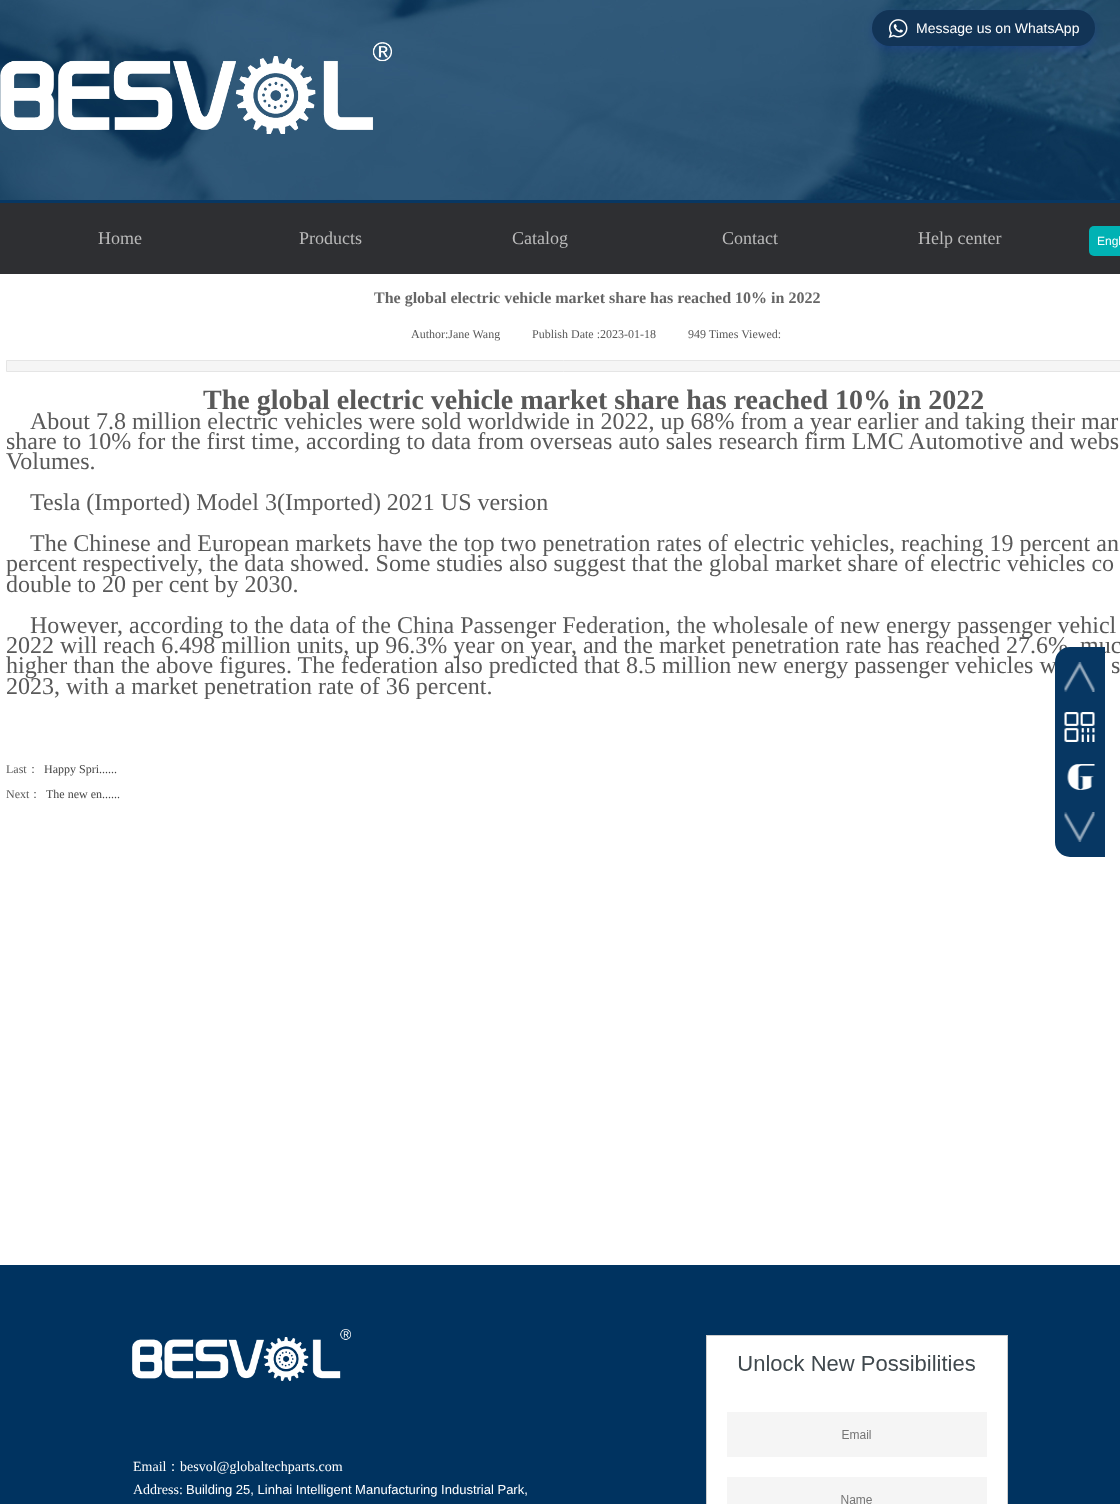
async function draw(canvas) {
	canvas.width = 1120;
	canvas.height = 1504;
	const c = canvas.getContext('2d');
	c.miterLimit = 4;
	c.fontKerning = 'normal';
	async function loadImage(src) {
		const img = new Image();
		img.src = src;
		await img.decode();
		return img;
	}

	c.fillStyle = '#fff';
	c.fillRect(0, 0, 1120, 1504);
	c.drawImage(await loadImage('img2.png'), 0, 0, 1120, 200);
	c.fillStyle = '#0000ff1a';
	c.filter = 'blur(4px)';
	c.beginPath();
	c.roundRect(872, 14, 223, 36, 18);
	c.fill();
	c.filter = 'none';
	c.fillStyle = '#123456';
	c.beginPath();
	c.roundRect(872, 10, 223, 36, 18);
	c.fill();
	c.drawImage(await loadImage('img1.png'), 888, 19, 20, 19);
	c.font = '14px Liberation Sans';
	c.fillStyle = '#fff';
	c.fillText('Message us on WhatsApp', 916, 33);
	c.drawImage(await loadImage('img3.png'), 0, 42, 392, 92);
	c.fillStyle = '#073763';
	c.fillRect(0, 200, 1120, 3);
	c.fillStyle = '#2e2f32';
	c.fillRect(0, 203, 1120, 71);
	c.font = '18px Liberation Serif';
	c.fillStyle = '#bbb';
	for (const [text, x, y] of [
		['Home', 98, 244],
		['Products', 299, 244],
		['Catalog', 512, 244],
		['Contact', 722, 244],
		['Help center', 918, 244],
	]) {
		c.fillText(text, x, y);
	}
	c.fillStyle = '#00b2b4';
	c.beginPath();
	c.roundRect(1089, 226, 31, 30, [5, 0, 0, 5]);
	c.fill();
	c.font = '12px Liberation Sans';
	c.fillStyle = '#fff';
	c.fillText('Engl', 1097, 245);
	c.font = 'bold 16px Liberation Serif';
	c.fillStyle = '#666';
	c.fillText('The global electric vehicle market share has reached 10% in 2022', 374, 303);
	c.font = '12px Liberation Serif';
	c.fillStyle = '#595959';
	for (const [text, x, y] of [
		['Author:Jane Wang', 411, 338],
		['Publish Date :2023-01-18', 532, 338],
		['949 Times Viewed:', 688, 338],
	]) {
		c.fillText(text, x, y);
	}
	c.fillStyle = '#f5f5f5';
	c.beginPath();
	c.rect(6.5, 360.5, 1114, 11);
	c.fill();
	c.strokeStyle = '#e5e5e5';
	c.stroke();
	c.font = 'bold 28px Liberation Serif';
	c.fillStyle = '#595959';
	c.fillText('The global electric vehicle market share has reached 10% in 2022', 203, 409);
	c.font = '24px Liberation Serif';
	for (const [text, x, y] of [
		['About 7.8 million electric vehicles were sold worldwide in 2022, up 68% from a year earlier and taking their mar', 30, 429],
		['share to 10% for the first time, according to data from overseas auto sales research firm LMC Automotive and webs', 6, 449],
		['Volumes.', 6, 469],
		['Tesla (Imported) Model 3(Imported) 2021 US version', 30, 510],
		['The Chinese and European markets have the top two penetration rates of electric vehicles, reaching 19 percent an', 30, 551],
		['percent respectively, the data showed. Some studies also suggest that the global market share of electric vehicles co', 6, 571],
		['double to 20 per cent by 2030.', 6, 592],
		['However, according to the data of the China Passenger Federation, the wholesale of new energy passenger vehicl', 30, 633],
		['2022 will reach 6.498 million units, up 96.3% year on year, and the market penetration rate has reached 27.6%, muc', 6, 653],
		['higher than the above figures. The federation also predicted that 8.5 million new energy passenger vehicles w', 6, 673],
		['s', 1111, 673],
		['2023, with a market penetration rate of 36 percent.', 6, 694],
	]) {
		c.fillText(text, x, y);
	}
	c.font = '12px Liberation Serif';
	c.fillText('Last', 6, 773);
	c.font = '500 12px WenQuanYi Zen Hei';
	c.fillText('：', 27, 773);
	c.font = '12px Liberation Serif';
	c.fillStyle = '#444';
	c.fillText('Happy Spri......', 44, 773);
	c.fillStyle = '#595959';
	c.fillText('Next', 6, 798);
	c.font = '500 12px WenQuanYi Zen Hei';
	c.fillText('：', 29, 798);
	c.font = '12px Liberation Serif';
	c.fillStyle = '#444';
	c.fillText('The new en......', 46, 798);
	c.fillStyle = '#003360';
	c.fillRect(0, 1265, 1120, 239);
	c.drawImage(await loadImage('img4.png'), 132, 1329, 219, 52);
	c.drawImage(await loadImage('img5.png'), 706, 1335, 302, 169);
	c.font = '14px Liberation Serif';
	c.fillStyle = '#fff';
	c.fillText('Email', 133, 1471);
	c.font = '500 14px WenQuanYi Zen Hei';
	c.fillText('：', 166, 1471);
	c.font = '14px Liberation Serif';
	c.fillText('besvol@globaltechparts.com', 180, 1471);
	c.fillText('Address:', 133, 1494);
	c.font = '13px Liberation Sans';
	c.fillText('Building 25, Linhai Intelligent Manufacturing Industrial Park,', 186, 1494);
	c.fillStyle = '#073763';
	c.beginPath();
	c.roundRect(1055, 647, 50, 210, [15, 0, 0, 15]);
	c.fill();
	c.drawImage(await loadImage('img6.png'), 1064, 662, 31, 30);
	c.drawImage(await loadImage('img7.png'), 1064, 712, 31, 30);
	c.drawImage(await loadImage('img8.png'), 1067, 764, 28, 26);
	c.drawImage(await loadImage('img9.png'), 1064, 812, 31, 30);
}

draw(document.querySelector('canvas'));
